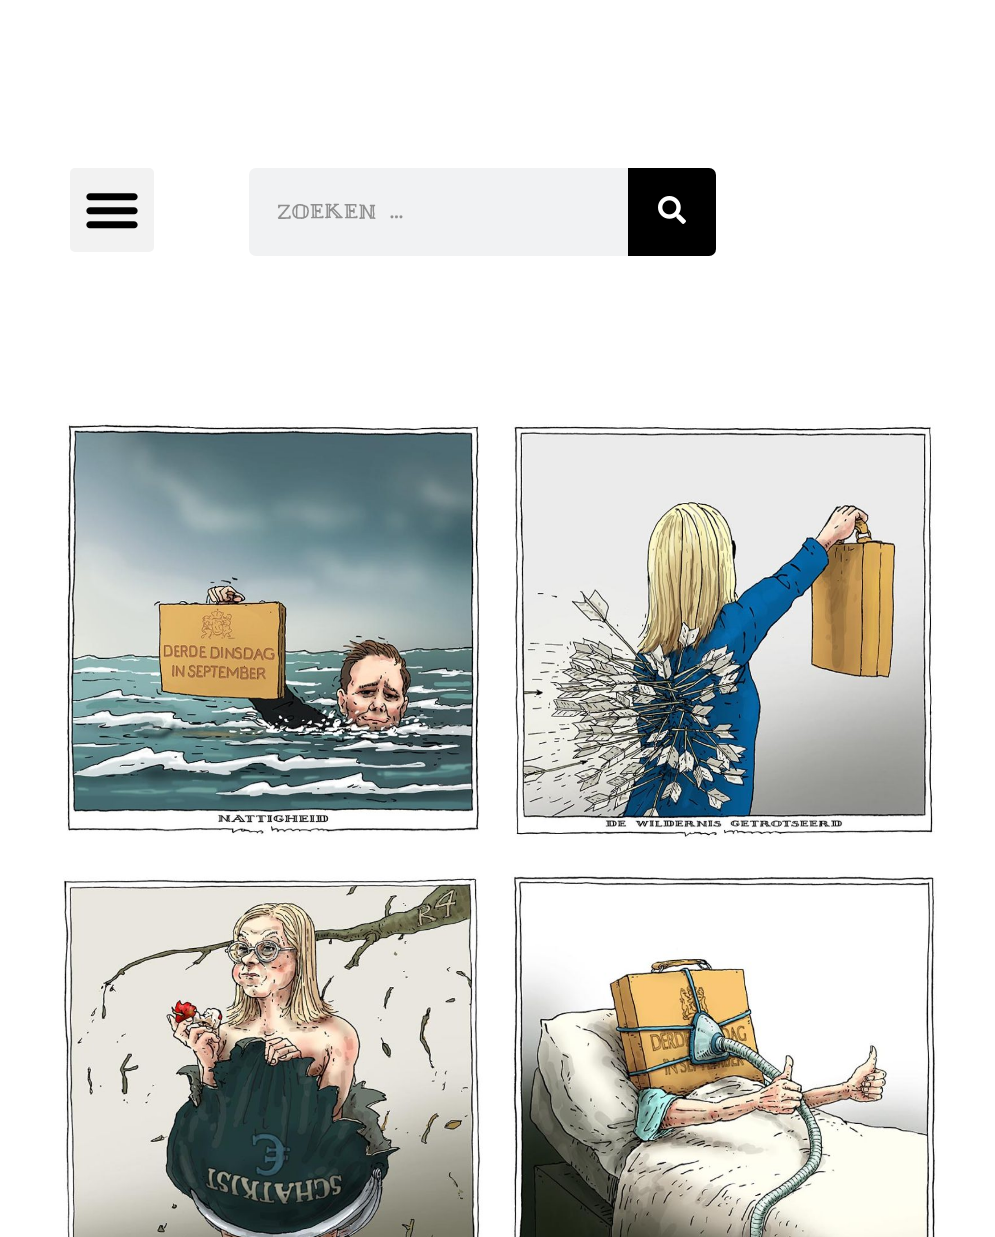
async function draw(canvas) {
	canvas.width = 995;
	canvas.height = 1237;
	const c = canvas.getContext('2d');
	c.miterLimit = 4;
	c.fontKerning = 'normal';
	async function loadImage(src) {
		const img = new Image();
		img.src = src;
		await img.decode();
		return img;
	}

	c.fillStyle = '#fff';
	c.fillRect(0, 0, 995, 1237);
	c.fillStyle = '#f2f2f2';
	c.beginPath();
	c.roundRect(70, 168, 84, 84, 5);
	c.fill();
	c.drawImage(await loadImage('img1.png'), 86, 193, 52, 36);
	c.fillStyle = '#f1f2f3';
	c.beginPath();
	c.roundRect(249, 168, 467, 88, 7);
	c.fill();
	c.font = '26.25px "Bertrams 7"';
	c.fillStyle = '#8f8f8f';
	c.fillText('Zoeken ...', 277, 218);
	c.fillStyle = '#000';
	c.beginPath();
	c.roundRect(628, 168, 88, 88, [0, 7, 7, 0]);
	c.fill();
	c.drawImage(await loadImage('img2.png'), 658, 196, 28, 28);
	c.drawImage(await loadImage('img3.png'), 66, 423, 414, 413);
	c.drawImage(await loadImage('img4.png'), 511, 424, 424, 415);
	c.drawImage(await loadImage('img5.png'), 63, 876, 420, 361);
	c.drawImage(await loadImage('img6.png'), 511, 873, 426, 364);
}

draw(document.querySelector('canvas'));
